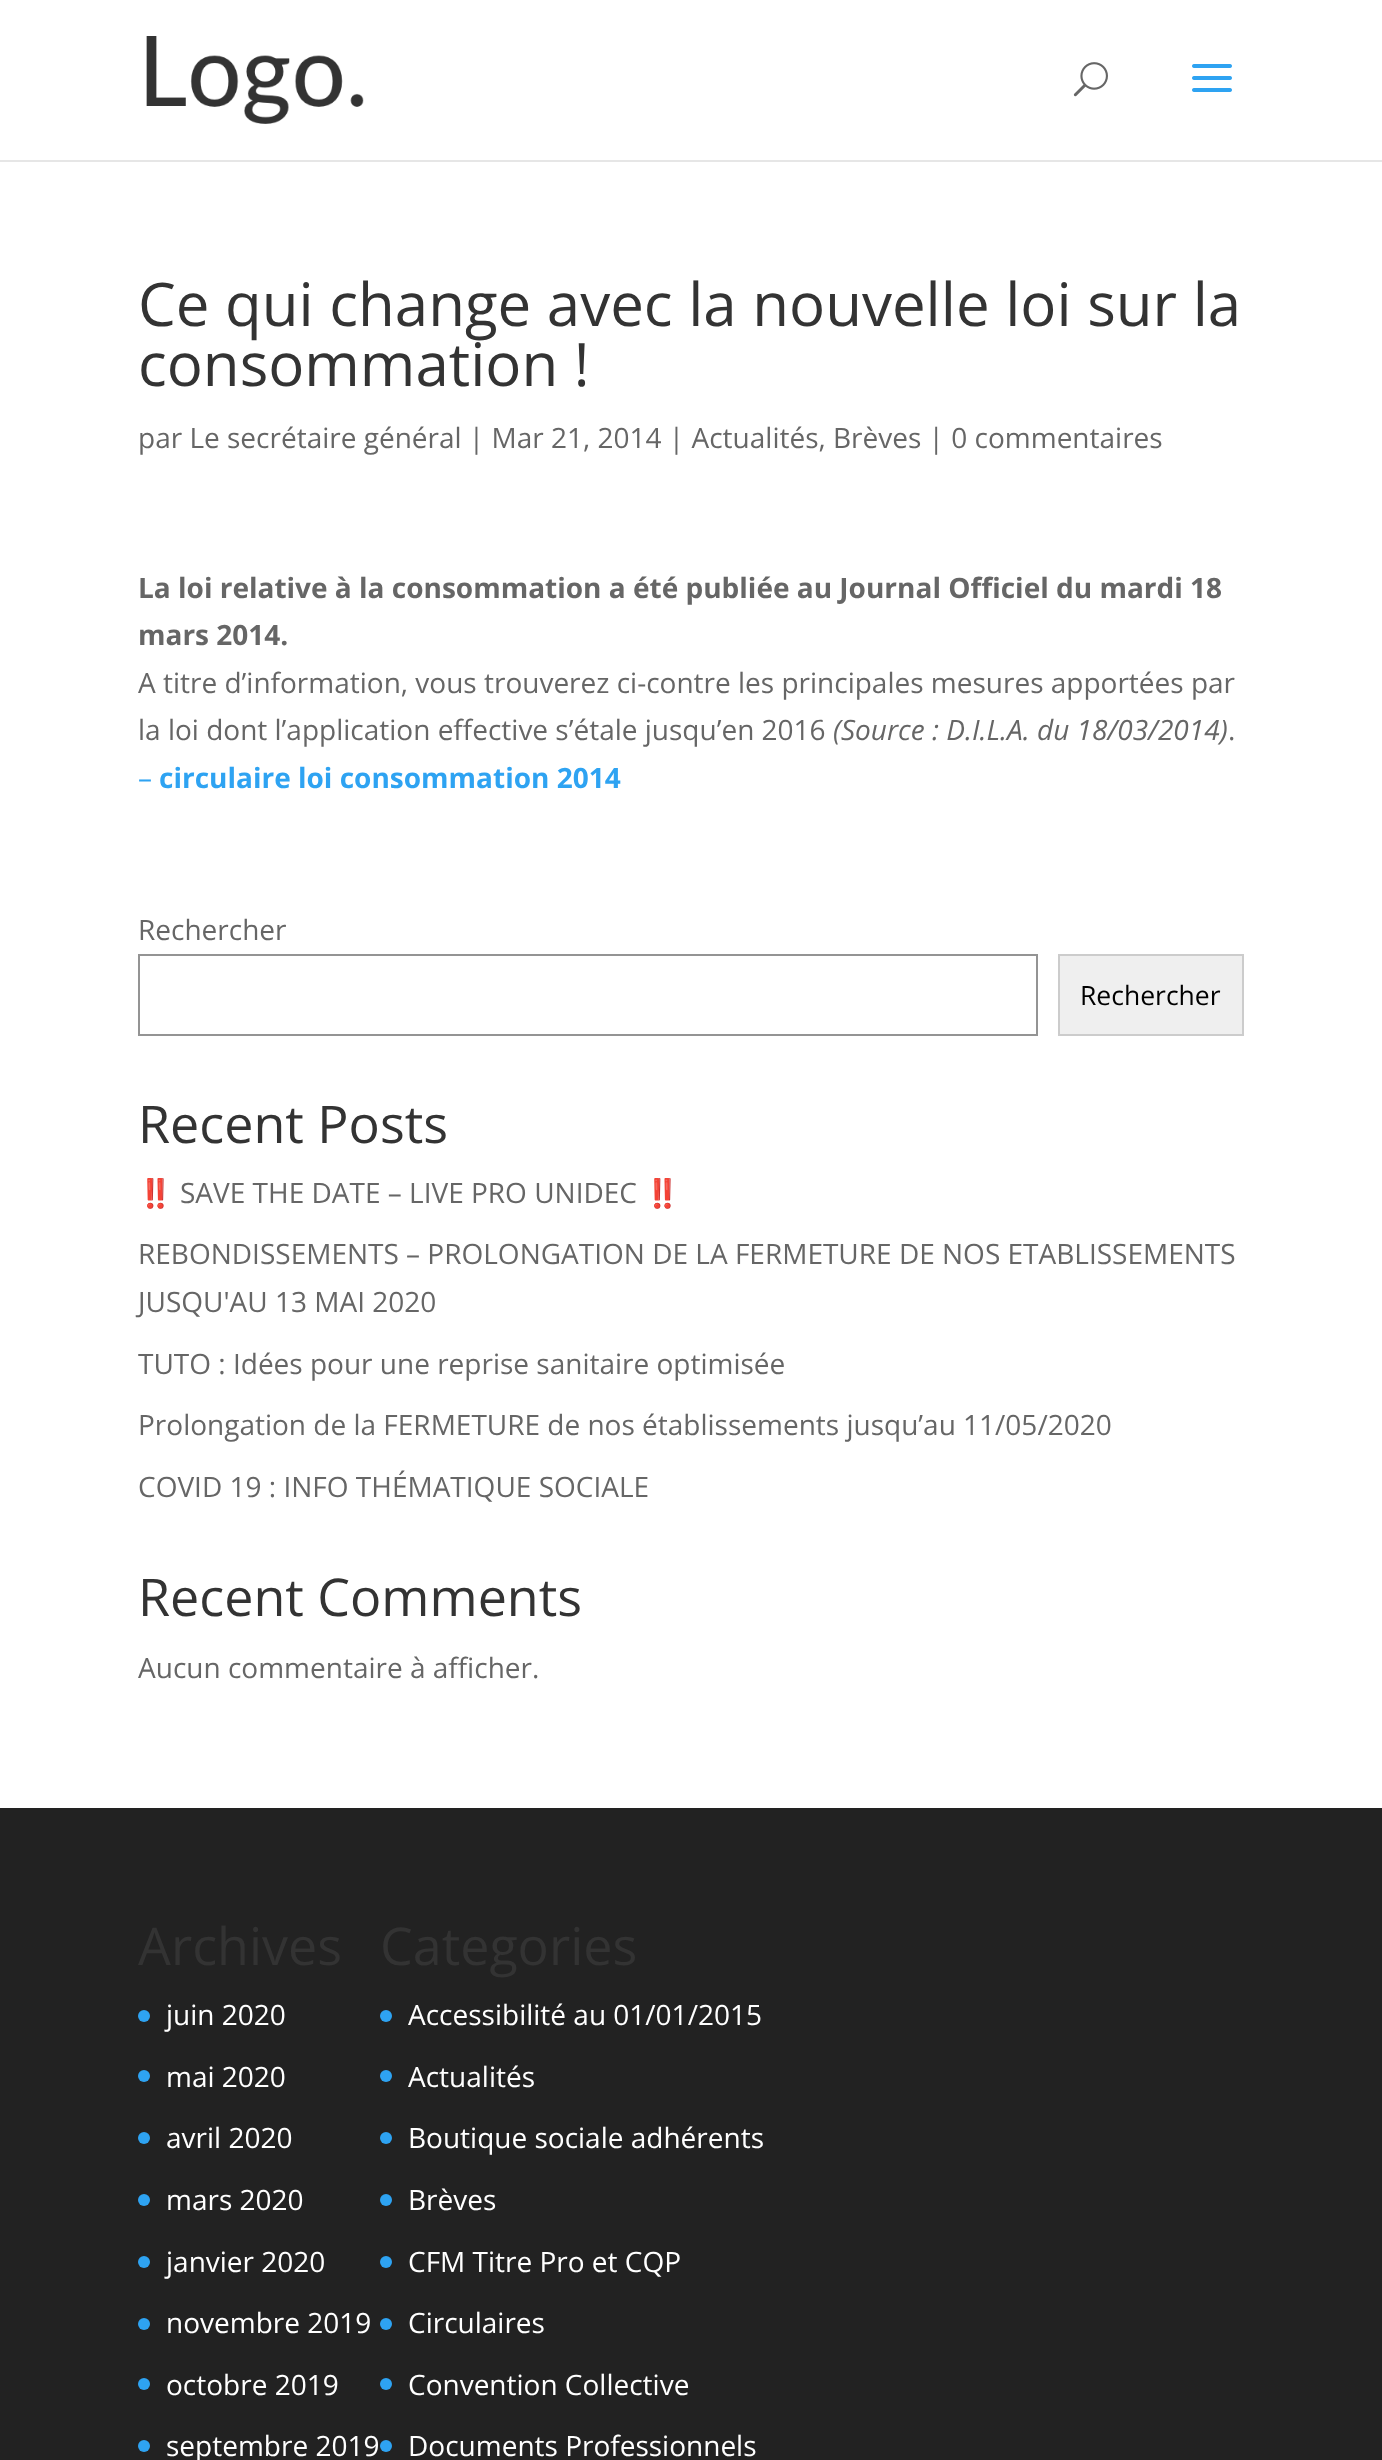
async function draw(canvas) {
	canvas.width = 1382;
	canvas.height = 2460;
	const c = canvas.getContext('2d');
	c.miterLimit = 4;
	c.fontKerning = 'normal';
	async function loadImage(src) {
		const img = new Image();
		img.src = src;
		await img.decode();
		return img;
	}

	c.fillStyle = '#fff';
	c.fillRect(0, 0, 1382, 2460);
	c.fillStyle = '#e6e6e6';
	c.fillRect(0, 160, 1382, 2);
	c.drawImage(await loadImage('img1.png'), 146, 36, 218, 88);
	c.drawImage(await loadImage('img2.png'), 1073, 62, 35, 35);
	c.drawImage(await loadImage('img3.png'), 1192, 64, 40, 28);
	c.font = '60px Open Sans';
	c.fillStyle = '#333';
	c.fillText('Ce qui change avec la nouvelle loi sur la', 138, 326);
	c.fillText('consommation !', 138, 386);
	c.font = '28px Open Sans';
	c.fillStyle = '#666';
	c.fillText('par Le secrétaire général | Mar 21, 2014 | Actualités, Brèves | 0 commentaires', 138, 448);
	c.font = 'bold 28px Open Sans';
	c.fillText('La loi relative à la consommation a été publiée au Journal Officiel du mardi 18', 138, 598);
	c.fillText('mars 2014.', 138, 645);
	c.font = '28px Open Sans';
	c.fillText('A titre d’information, vous trouverez ci-contre les principales mesures apportées par', 138, 693);
	c.fillText('la loi dont l’application effective s’étale jusqu’en 2016', 138, 740);
	c.font = 'italic 28px Open Sans';
	c.fillText('(Source : D.I.L.A. du 18/03/2014)', 833, 740);
	c.font = '28px Open Sans';
	c.fillText('.', 1228, 740);
	c.fillStyle = '#2ea3f2';
	c.fillText('–', 138, 788);
	c.font = 'bold 28px Open Sans';
	c.fillText('circulaire loi consommation 2014', 159, 788);
	c.font = '28px Open Sans';
	c.fillStyle = '#666';
	c.fillText('Rechercher', 138, 940);
	c.strokeStyle = '#949494';
	c.lineWidth = 2;
	c.strokeRect(139, 955, 898, 80);
	c.fillStyle = '#efefef';
	c.beginPath();
	c.rect(1059, 955, 184, 80);
	c.fill();
	c.strokeStyle = '#ccc';
	c.stroke();
	c.font = '26.5px Open Sans';
	c.fillStyle = '#000';
	c.fillText('Rechercher', 1080, 1005);
	c.font = '52px Open Sans';
	c.fillStyle = '#333';
	c.fillText('Recent Posts', 138, 1143);
	c.font = '28px Noto Color Emoji';
	c.fillStyle = '#666';
	c.fillText('‼️', 138, 1203);
	c.font = '28px Open Sans';
	c.fillText('SAVE THE DATE – LIVE PRO UNIDEC', 180, 1203);
	c.font = '28px Noto Color Emoji';
	c.fillText('‼️', 645, 1203);
	c.font = '28px Open Sans';
	for (const [text, x, y] of [
		['REBONDISSEMENTS – PROLONGATION DE LA FERMETURE DE NOS ETABLISSEMENTS', 138, 1264],
		['JUSQU\'AU 13 MAI 2020', 138, 1312],
		['TUTO : Idées pour une reprise sanitaire optimisée', 138, 1374],
		['Prolongation de la FERMETURE de nos établissements jusqu’au 11/05/2020', 138, 1435],
		['COVID 19 : INFO THÉMATIQUE SOCIALE', 138, 1497],
	]) {
		c.fillText(text, x, y);
	}
	c.font = '52px Open Sans';
	c.fillStyle = '#333';
	c.fillText('Recent Comments', 138, 1616);
	c.font = '28px Open Sans';
	c.fillStyle = '#666';
	c.fillText('Aucun commentaire à afficher.', 138, 1678);
	c.fillStyle = '#222';
	c.fillRect(0, 1808, 1382, 652);
	c.font = '52px Open Sans';
	c.fillStyle = '#333';
	c.fillText('Archives', 138, 1965);
	c.fillStyle = '#2ea3f2';
	c.beginPath();
	c.arc(144, 2016, 6, 0, 2 * Math.PI);
	c.fill();
	c.font = '28px Open Sans';
	c.fillStyle = '#fff';
	c.fillText('juin 2020', 166, 2025);
	c.fillStyle = '#2ea3f2';
	c.beginPath();
	c.arc(144, 2076, 6, 0, 2 * Math.PI);
	c.fill();
	c.fillStyle = '#fff';
	c.fillText('mai 2020', 166, 2087);
	c.fillStyle = '#2ea3f2';
	c.beginPath();
	c.arc(144, 2138, 6, 0, 2 * Math.PI);
	c.fill();
	c.fillStyle = '#fff';
	c.fillText('avril 2020', 166, 2148);
	c.fillStyle = '#2ea3f2';
	c.beginPath();
	c.arc(144, 2200, 6, 0, 2 * Math.PI);
	c.fill();
	c.fillStyle = '#fff';
	c.fillText('mars 2020', 166, 2210);
	c.fillStyle = '#2ea3f2';
	c.beginPath();
	c.arc(144, 2262, 6, 0, 2 * Math.PI);
	c.fill();
	c.fillStyle = '#fff';
	c.fillText('janvier 2020', 166, 2272);
	c.fillStyle = '#2ea3f2';
	c.beginPath();
	c.arc(144, 2324, 6, 0, 2 * Math.PI);
	c.fill();
	c.fillStyle = '#fff';
	c.fillText('novembre 2019', 166, 2333);
	c.fillStyle = '#2ea3f2';
	c.beginPath();
	c.arc(144, 2384, 6, 0, 2 * Math.PI);
	c.fill();
	c.fillStyle = '#fff';
	c.fillText('octobre 2019', 166, 2395);
	c.fillStyle = '#2ea3f2';
	c.beginPath();
	c.arc(144, 2446, 6, 0, 2 * Math.PI);
	c.fill();
	c.fillStyle = '#fff';
	c.fillText('septembre 2019', 166, 2456);
	c.font = '52px Open Sans';
	c.fillStyle = '#333';
	c.fillText('Categories', 380, 1965);
	c.fillStyle = '#2ea3f2';
	c.beginPath();
	c.arc(386, 2016, 6, 0, 2 * Math.PI);
	c.fill();
	c.font = '28px Open Sans';
	c.fillStyle = '#fff';
	c.fillText('Accessibilité au 01/01/2015', 408, 2025);
	c.fillStyle = '#2ea3f2';
	c.beginPath();
	c.arc(386, 2076, 6, 0, 2 * Math.PI);
	c.fill();
	c.fillStyle = '#fff';
	c.fillText('Actualités', 408, 2087);
	c.fillStyle = '#2ea3f2';
	c.beginPath();
	c.arc(386, 2138, 6, 0, 2 * Math.PI);
	c.fill();
	c.fillStyle = '#fff';
	c.fillText('Boutique sociale adhérents', 408, 2148);
	c.fillStyle = '#2ea3f2';
	c.beginPath();
	c.arc(386, 2200, 6, 0, 2 * Math.PI);
	c.fill();
	c.fillStyle = '#fff';
	c.fillText('Brèves', 408, 2210);
	c.fillStyle = '#2ea3f2';
	c.beginPath();
	c.arc(386, 2262, 6, 0, 2 * Math.PI);
	c.fill();
	c.fillStyle = '#fff';
	c.fillText('CFM Titre Pro et CQP', 408, 2272);
	c.fillStyle = '#2ea3f2';
	c.beginPath();
	c.arc(386, 2324, 6, 0, 2 * Math.PI);
	c.fill();
	c.fillStyle = '#fff';
	c.fillText('Circulaires', 408, 2333);
	c.fillStyle = '#2ea3f2';
	c.beginPath();
	c.arc(386, 2384, 6, 0, 2 * Math.PI);
	c.fill();
	c.fillStyle = '#fff';
	c.fillText('Convention Collective', 408, 2395);
	c.fillStyle = '#2ea3f2';
	c.beginPath();
	c.arc(386, 2446, 6, 0, 2 * Math.PI);
	c.fill();
	c.fillStyle = '#fff';
	c.fillText('Documents Professionnels', 408, 2456);
}

draw(document.querySelector('canvas'));
